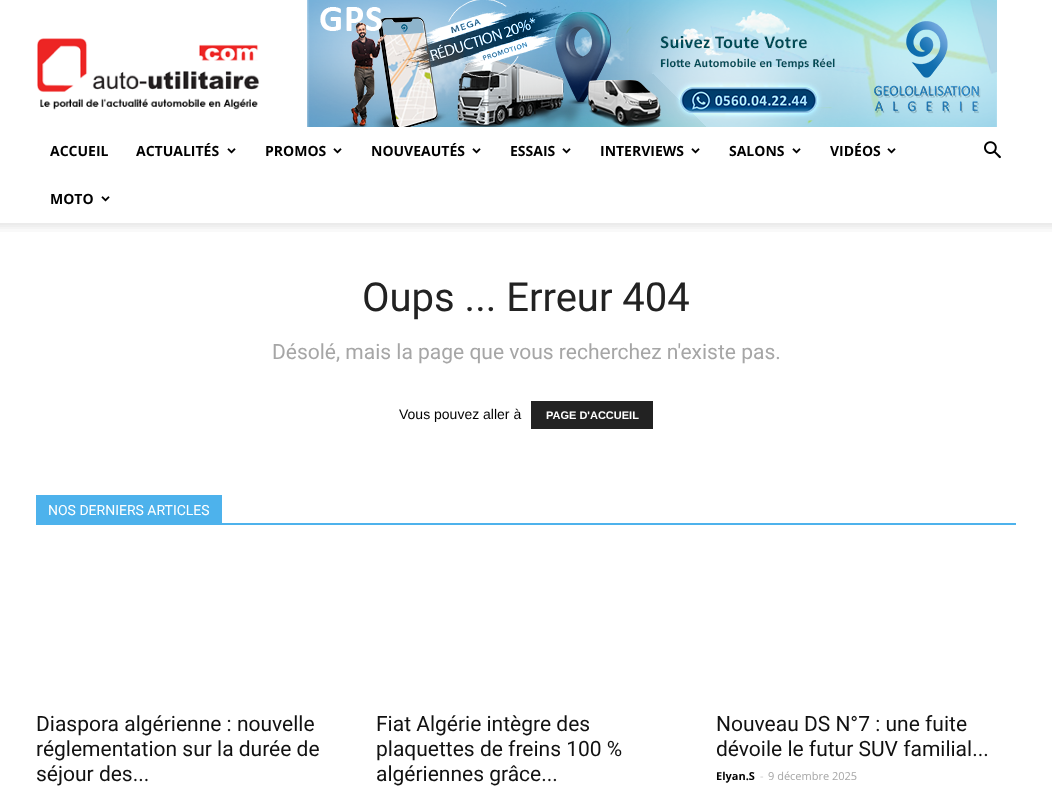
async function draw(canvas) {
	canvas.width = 1052;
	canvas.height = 794;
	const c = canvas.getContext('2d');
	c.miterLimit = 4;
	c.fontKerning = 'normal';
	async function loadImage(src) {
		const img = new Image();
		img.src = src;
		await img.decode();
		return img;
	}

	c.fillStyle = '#fff';
	c.fillRect(0, 0, 1052, 794);
	c.drawImage(await loadImage('img1.png'), 37, 38, 223, 72);
	c.drawImage(await loadImage('img2.png'), 307, 0, 690, 127);
	c.font = 'bold 14px Open Sans';
	c.fillStyle = '#000';
	c.fillText('ACCUEIL', 50, 156);
	c.fillText('ACTUALITÉS', 136, 156);
	c.drawImage(await loadImage('img3.png'), 227, 148, 9, 6);
	c.fillText('PROMOS', 265, 156);
	c.drawImage(await loadImage('img3.png'), 333, 148, 9, 6);
	c.fillText('NOUVEAUTÉS', 371, 156);
	c.drawImage(await loadImage('img3.png'), 472, 148, 9, 6);
	c.fillText('ESSAIS', 510, 156);
	c.drawImage(await loadImage('img3.png'), 562, 148, 9, 6);
	c.fillText('INTERVIEWS', 600, 156);
	c.drawImage(await loadImage('img3.png'), 691, 148, 9, 6);
	c.fillText('SALONS', 729, 156);
	c.drawImage(await loadImage('img3.png'), 792, 148, 9, 6);
	c.fillText('VIDÉOS', 830, 156);
	c.drawImage(await loadImage('img3.png'), 887, 148, 9, 6);
	c.fillText('MOTO', 50, 204);
	c.drawImage(await loadImage('img3.png'), 101, 196, 9, 6);
	c.drawImage(await loadImage('img4.png'), 984, 141, 17, 18);
	c.drawImage(await loadImage('img5.png'), 0, 223, 1052, 9);
	c.font = '40px Roboto';
	c.fillStyle = '#222';
	c.fillText('Oups ... Erreur 404', 362, 311);
	c.font = '21px Roboto';
	c.fillStyle = '#a6a6a6';
	c.fillText('Désolé, mais la page que vous recherchez n\'existe pas.', 272, 359);
	c.font = '14px Liberation Sans';
	c.fillStyle = '#000';
	c.fillText('Vous pouvez aller à', 399, 419);
	c.fillStyle = '#222';
	c.fillRect(531, 401, 122, 28);
	c.font = 'bold 11px Liberation Sans';
	c.fillStyle = '#fff';
	c.fillText('PAGE D\'ACCUEIL', 546, 419);
	c.fillStyle = '#4db2ec';
	c.fillRect(36, 523, 980, 2);
	c.fillRect(36, 495, 186, 28);
	c.font = '14px Roboto';
	c.fillStyle = '#fff';
	c.fillText('NOS DERNIERS ARTICLES', 48, 515);
	c.font = '21px Roboto';
	c.fillStyle = '#111';
	for (const [text, x, y] of [
		['Diaspora algérienne : nouvelle', 36, 731],
		['réglementation sur la durée de', 36, 756],
		['séjour des...', 36, 781],
		['Fiat Algérie intègre des', 376, 731],
		['plaquettes de freins 100 %', 376, 756],
		['algériennes grâce...', 376, 781],
		['Nouveau DS N°7 : une fuite', 716, 731],
		['dévoile le futur SUV familial...', 716, 756],
	]) {
		c.fillText(text, x, y);
	}
	c.font = 'bold 11px Open Sans';
	c.fillStyle = '#000';
	c.fillText('Elyan.S', 716, 780);
	c.font = '11px Open Sans';
	c.fillStyle = '#ccc';
	c.fillText('-', 760, 780);
	c.fillStyle = '#a6a6a6';
	c.fillText('9 décembre 2025', 768, 780);
}

draw(document.querySelector('canvas'));
